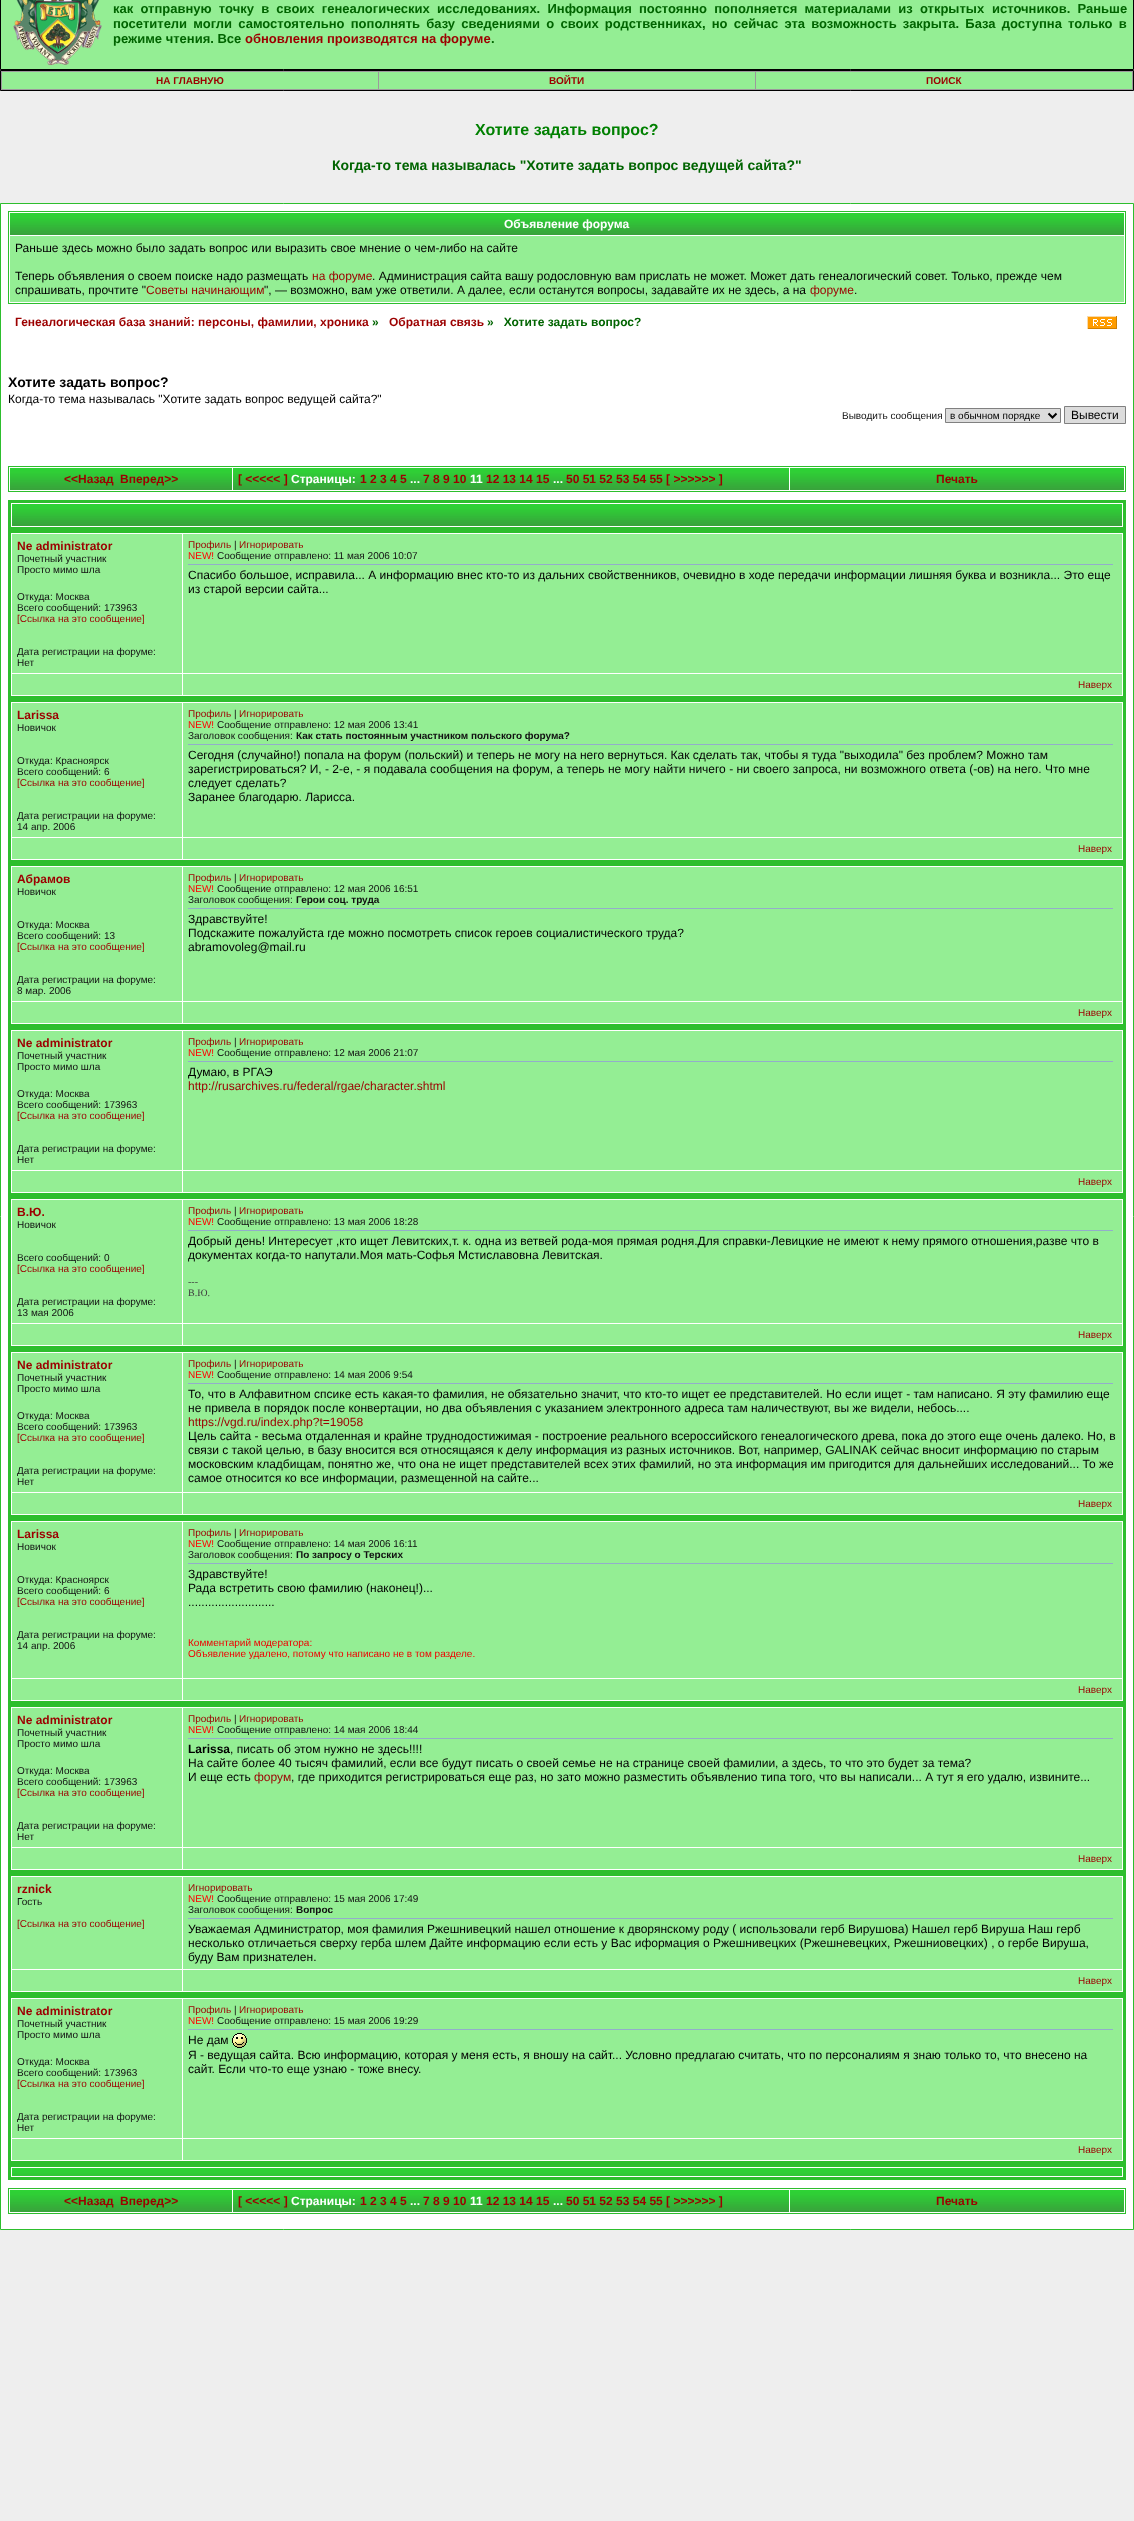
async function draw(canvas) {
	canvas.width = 1134;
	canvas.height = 2521;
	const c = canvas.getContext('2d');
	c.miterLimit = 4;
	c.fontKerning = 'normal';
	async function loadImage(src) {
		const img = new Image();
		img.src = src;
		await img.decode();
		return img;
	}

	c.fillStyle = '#eee';
	c.fillRect(0, 0, 1134, 2521);
	c.fillStyle = '#94ee94';
	c.beginPath();
	c.rect(0.5, -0.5, 1133, 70);
	c.fill();
	c.strokeStyle = '#000';
	c.stroke();
	c.drawImage(await loadImage('img1.png'), 13, 0, 89, 66);
	c.wordSpacing = '3.6px';
	c.font = 'bold 13px Liberation Sans';
	c.fillStyle = '#006400';
	c.fillText('как отправную точку в своих генеалогических исследованиях. Информация постоянно пополняется материалами из открытых', 113, 13);
	c.fillText('источников. Раньше', 992, 13);
	c.wordSpacing = '2.6px';
	c.fillText('посетители могли самостоятельно пополнять базу сведениями о своих родственниках, но сейчас эта возможность закрыта. База доступна только в', 113, 28);
	c.wordSpacing = '0px';
	c.fillText('режиме чтения. Все', 113, 43);
	c.fillStyle = '#9c0000';
	c.fillText('обновления производятся на форуме', 245, 43);
	c.fillStyle = '#006400';
	c.fillText('.', 491, 43);
	c.fillStyle = '#9c999c';
	c.beginPath();
	c.rect(0.5, 70.5, 1133, 20);
	c.fill();
	c.stroke();
	c.fillStyle = '#94ee94';
	c.fillRect(2, 72, 376, 17);
	c.font = 'bold 10px Liberation Sans';
	c.fillStyle = '#9c0000';
	c.fillText('НА ГЛАВНУЮ', 156, 84);
	c.fillStyle = '#94ee94';
	c.fillRect(379, 72, 376, 17);
	c.fillStyle = '#9c0000';
	c.fillText('ВОЙТИ', 549, 84);
	c.fillStyle = '#94ee94';
	c.fillRect(756, 72, 376, 17);
	c.fillStyle = '#9c0000';
	c.fillText('ПОИСК', 926, 84);
	c.font = 'bold 16px Liberation Sans';
	c.fillStyle = '#008000';
	c.fillText('Хотите задать вопрос?', 475, 135);
	c.font = 'bold 14px Liberation Sans';
	c.fillStyle = '#006400';
	c.fillText('Когда-то тема называлась "Хотите задать вопрос ведущей сайта?"', 332, 170);
	c.fillStyle = '#fff';
	c.beginPath();
	c.rect(0.5, 203.5, 1133, 2026);
	c.fill();
	c.strokeStyle = '#2dbe2d';
	c.stroke();
	c.strokeRect(8.5, 211.5, 1117, 92);
	c.drawImage(await loadImage('img2.png'), 10, 213, 1114, 22);
	c.font = 'bold 12px Liberation Sans';
	c.fillText('Объявление форума', 504, 228);
	c.fillStyle = '#94ee94';
	c.fillRect(10, 236, 1114, 66);
	c.font = '12px Liberation Sans';
	c.fillStyle = '#000';
	c.fillText('Раньше здесь можно было задать вопрос или выразить свое мнение о чем-либо на сайте', 15, 252);
	c.fillText('Теперь объявления о своем поиске надо размещать', 15, 280);
	c.fillStyle = '#9c0000';
	c.fillText('на форуме', 312, 280);
	c.fillStyle = '#000';
	c.fillText('. Администрация сайта вашу родословную вам прислать не может. Может дать генеалогический совет. Только, прежде чем', 372, 280);
	c.fillText('спрашивать, прочтите "', 15, 294);
	c.fillStyle = '#9c0000';
	c.fillText('Советы начинающим', 146, 294);
	c.fillStyle = '#000';
	c.fillText('", — возможно, вам уже ответили. А далее, если останутся вопросы, задавайте их не здесь, а на', 264, 294);
	c.fillStyle = '#9c0000';
	c.fillText('форуме', 810, 294);
	c.fillStyle = '#000';
	c.fillText('.', 854, 294);
	c.font = 'bold 12px Liberation Sans';
	c.fillStyle = '#9c0000';
	c.fillText('Генеалогическая база знаний: персоны, фамилии, хроника', 15, 326);
	c.fillStyle = '#006400';
	c.fillText('»', 372, 326);
	c.fillStyle = '#9c0000';
	c.fillText('Обратная связь', 389, 326);
	c.fillStyle = '#006400';
	c.fillText('»   Хотите задать вопрос?', 487, 326);
	c.drawImage(await loadImage('img3.png'), 1087, 316, 30, 13);
	c.font = 'bold 14px Liberation Sans';
	c.fillStyle = '#000';
	c.fillText('Хотите задать вопрос?', 8, 387);
	c.font = '12px Liberation Sans';
	c.fillText('Когда-то тема называлась "Хотите задать вопрос ведущей сайта?"', 8, 403);
	c.font = '10px Liberation Sans';
	c.fillStyle = '#111';
	c.fillText('Выводить сообщения', 842, 419);
	c.fillStyle = '#dcdcdc';
	c.beginPath();
	c.rect(945.5, 408.5, 115, 14);
	c.fill();
	c.strokeStyle = '#808080';
	c.stroke();
	c.beginPath();
	c.moveTo(1048.5, 413.5);
	c.lineTo(1052.5, 417.5);
	c.lineTo(1056.5, 413.5);
	c.strokeStyle = '#000';
	c.lineWidth = 2;
	c.stroke();
	c.fillStyle = '#000';
	c.fillText('в обычном порядке', 950, 419);
	c.fillStyle = '#dcdcdc';
	c.beginPath();
	c.rect(1064.5, 406.5, 61, 17);
	c.fill();
	c.strokeStyle = '#808080';
	c.lineWidth = 1;
	c.stroke();
	c.font = '12px Liberation Sans';
	c.fillStyle = '#000';
	c.fillText('Вывести', 1071, 419);
	c.strokeStyle = '#2dbe2d';
	c.strokeRect(8.5, 466.5, 1117, 25);
	c.drawImage(await loadImage('img4.png'), 10, 468, 222, 22);
	c.font = 'bold 12px Liberation Sans';
	c.fillStyle = '#9c0000';
	c.fillText('<<Назад', 64, 483);
	c.fillText('Вперед>>', 120, 483);
	c.drawImage(await loadImage('img5.png'), 233, 468, 556, 22);
	c.fillText('[ <<<<< ]', 238, 483);
	c.fillStyle = '#fff';
	c.fillText('Страницы:', 291, 483);
	c.fillStyle = '#9c0000';
	c.fillText('1 2 3 4 5', 360, 483);
	c.fillStyle = '#fff';
	c.fillText('...', 410, 483);
	c.fillStyle = '#9c0000';
	c.fillText('7 8 9 10', 423, 483);
	c.fillStyle = '#fff';
	c.fillText('11', 470, 483);
	c.fillStyle = '#9c0000';
	c.fillText('12 13 14 15', 486, 483);
	c.fillStyle = '#fff';
	c.fillText('...', 553, 483);
	c.fillStyle = '#9c0000';
	c.fillText('50 51 52 53 54 55 [ >>>>>> ]', 566, 483);
	c.drawImage(await loadImage('img6.png'), 790, 468, 334, 22);
	c.fillText('Печать', 936, 483);
	c.lineWidth = 3;
	c.strokeRect(9.5, 501.5, 1115, 27);
	c.drawImage(await loadImage('img7.png'), 12, 504, 1110, 22);
	c.strokeRect(9.5, 531.5, 1115, 166);
	c.fillStyle = '#94ee94';
	c.fillRect(12, 534, 170, 139);
	c.fillStyle = '#9c0000';
	c.fillText('Ne administrator', 17, 550);
	c.font = '10px Liberation Sans';
	c.fillStyle = '#111';
	for (const [text, x, y] of [
		['Почетный участник', 17, 562],
		['Просто мимо шла', 17, 573],
		['Откуда: Москва', 17, 600],
		['Всего сообщений: 173963', 17, 611],
	]) {
		c.fillText(text, x, y);
	}
	c.fillStyle = '#9c0000';
	c.fillText('[Ссылка на это сообщение]', 17, 622);
	c.fillStyle = '#111';
	c.fillText('Дата регистрации на форуме:', 17, 655);
	c.fillText('Нет', 17, 666);
	c.fillStyle = '#94ee94';
	c.fillRect(183, 534, 939, 139);
	c.fillStyle = '#93adca';
	c.fillRect(188, 564, 925, 1);
	c.fillStyle = '#9c0000';
	c.fillText('Профиль', 188, 548);
	c.fillStyle = '#111';
	c.fillText('|', 234, 548);
	c.fillStyle = '#9c0000';
	c.fillText('Игнорировать', 239, 548);
	c.fillStyle = '#f00';
	c.fillText('NEW!', 188, 559);
	c.fillStyle = '#111';
	c.fillText('Сообщение отправлено: 11 мая 2006 10:07', 217, 559);
	c.font = '12px Liberation Sans';
	c.fillStyle = '#000';
	c.fillText('Спасибо большое, исправила... А информацию внес кто-то из дальних свойственников, очевидно в ходе передачи информации лишняя буква и возникла... Это еще', 188, 579);
	c.fillText('из старой версии сайта...', 188, 593);
	c.fillStyle = '#94ee94';
	c.fillRect(12, 674, 170, 21);
	c.fillRect(183, 674, 939, 21);
	c.font = '10px Liberation Sans';
	c.fillStyle = '#9c0000';
	c.fillText('Наверх', 1078, 688);
	c.strokeRect(9.5, 700.5, 1115, 161);
	c.fillStyle = '#94ee94';
	c.fillRect(12, 703, 170, 134);
	c.font = 'bold 12px Liberation Sans';
	c.fillStyle = '#9c0000';
	c.fillText('Larissa', 17, 719);
	c.font = '10px Liberation Sans';
	c.fillStyle = '#111';
	for (const [text, x, y] of [
		['Новичок', 17, 731],
		['Откуда: Красноярск', 17, 764],
		['Всего сообщений: 6', 17, 775],
	]) {
		c.fillText(text, x, y);
	}
	c.fillStyle = '#9c0000';
	c.fillText('[Ссылка на это сообщение]', 17, 786);
	c.fillStyle = '#111';
	c.fillText('Дата регистрации на форуме:', 17, 819);
	c.fillText('14 апр. 2006', 17, 830);
	c.fillStyle = '#94ee94';
	c.fillRect(183, 703, 939, 134);
	c.fillStyle = '#93adca';
	c.fillRect(188, 744, 925, 1);
	c.fillStyle = '#9c0000';
	c.fillText('Профиль', 188, 717);
	c.fillStyle = '#111';
	c.fillText('|', 234, 717);
	c.fillStyle = '#9c0000';
	c.fillText('Игнорировать', 239, 717);
	c.fillStyle = '#f00';
	c.fillText('NEW!', 188, 728);
	c.fillStyle = '#111';
	c.fillText('Сообщение отправлено: 12 мая 2006 13:41', 217, 728);
	c.fillText('Заголовок сообщения:', 188, 739);
	c.font = 'bold 10px Liberation Sans';
	c.fillText('Как стать постоянным участником польского форума?', 296, 739);
	c.font = '12px Liberation Sans';
	c.fillStyle = '#000';
	for (const [text, x, y] of [
		['Сегодня (случайно!) попала на форум (польский) и теперь не могу на него вернуться. Как сделать так, чтобы я туда "выходила" без проблем? Можно там', 188, 759],
		['зарегистрироваться? И, - 2-е, - я подавала сообщения на форум, а теперь не могу найти ничего - ни своего запроса, ни возможного ответа (-ов) на него. Что мне', 188, 773],
		['следует сделать?', 188, 787],
		['Заранее благодарю. Ларисса.', 188, 801],
	]) {
		c.fillText(text, x, y);
	}
	c.fillStyle = '#94ee94';
	c.fillRect(12, 838, 170, 21);
	c.fillRect(183, 838, 939, 21);
	c.font = '10px Liberation Sans';
	c.fillStyle = '#9c0000';
	c.fillText('Наверх', 1078, 852);
	c.strokeRect(9.5, 864.5, 1115, 161);
	c.fillStyle = '#94ee94';
	c.fillRect(12, 867, 170, 134);
	c.font = 'bold 12px Liberation Sans';
	c.fillStyle = '#9c0000';
	c.fillText('Абрамов', 17, 883);
	c.font = '10px Liberation Sans';
	c.fillStyle = '#111';
	for (const [text, x, y] of [
		['Новичок', 17, 895],
		['Откуда: Москва', 17, 928],
		['Всего сообщений: 13', 17, 939],
	]) {
		c.fillText(text, x, y);
	}
	c.fillStyle = '#9c0000';
	c.fillText('[Ссылка на это сообщение]', 17, 950);
	c.fillStyle = '#111';
	c.fillText('Дата регистрации на форуме:', 17, 983);
	c.fillText('8 мар. 2006', 17, 994);
	c.fillStyle = '#94ee94';
	c.fillRect(183, 867, 939, 134);
	c.fillStyle = '#93adca';
	c.fillRect(188, 908, 925, 1);
	c.fillStyle = '#9c0000';
	c.fillText('Профиль', 188, 881);
	c.fillStyle = '#111';
	c.fillText('|', 234, 881);
	c.fillStyle = '#9c0000';
	c.fillText('Игнорировать', 239, 881);
	c.fillStyle = '#f00';
	c.fillText('NEW!', 188, 892);
	c.fillStyle = '#111';
	c.fillText('Сообщение отправлено: 12 мая 2006 16:51', 217, 892);
	c.fillText('Заголовок сообщения:', 188, 903);
	c.font = 'bold 10px Liberation Sans';
	c.fillText('Герои соц. труда', 296, 903);
	c.font = '12px Liberation Sans';
	c.fillStyle = '#000';
	for (const [text, x, y] of [
		['Здравствуйте!', 188, 923],
		['Подскажите пожалуйста где можно посмотреть список героев социалистического труда?', 188, 937],
		['abramovoleg@mail.ru', 188, 951],
	]) {
		c.fillText(text, x, y);
	}
	c.fillStyle = '#94ee94';
	c.fillRect(12, 1002, 170, 21);
	c.fillRect(183, 1002, 939, 21);
	c.font = '10px Liberation Sans';
	c.fillStyle = '#9c0000';
	c.fillText('Наверх', 1078, 1016);
	c.strokeRect(9.5, 1028.5, 1115, 166);
	c.fillStyle = '#94ee94';
	c.fillRect(12, 1031, 170, 139);
	c.font = 'bold 12px Liberation Sans';
	c.fillStyle = '#9c0000';
	c.fillText('Ne administrator', 17, 1047);
	c.font = '10px Liberation Sans';
	c.fillStyle = '#111';
	for (const [text, x, y] of [
		['Почетный участник', 17, 1059],
		['Просто мимо шла', 17, 1070],
		['Откуда: Москва', 17, 1097],
		['Всего сообщений: 173963', 17, 1108],
	]) {
		c.fillText(text, x, y);
	}
	c.fillStyle = '#9c0000';
	c.fillText('[Ссылка на это сообщение]', 17, 1119);
	c.fillStyle = '#111';
	c.fillText('Дата регистрации на форуме:', 17, 1152);
	c.fillText('Нет', 17, 1163);
	c.fillStyle = '#94ee94';
	c.fillRect(183, 1031, 939, 139);
	c.fillStyle = '#93adca';
	c.fillRect(188, 1061, 925, 1);
	c.fillStyle = '#9c0000';
	c.fillText('Профиль', 188, 1045);
	c.fillStyle = '#111';
	c.fillText('|', 234, 1045);
	c.fillStyle = '#9c0000';
	c.fillText('Игнорировать', 239, 1045);
	c.fillStyle = '#f00';
	c.fillText('NEW!', 188, 1056);
	c.fillStyle = '#111';
	c.fillText('Сообщение отправлено: 12 мая 2006 21:07', 217, 1056);
	c.font = '12px Liberation Sans';
	c.fillStyle = '#000';
	c.fillText('Думаю, в РГАЭ', 188, 1076);
	c.fillStyle = '#9c0000';
	c.fillText('http://rusarchives.ru/federal/rgae/character.shtml', 188, 1090);
	c.fillStyle = '#94ee94';
	c.fillRect(12, 1171, 170, 21);
	c.fillRect(183, 1171, 939, 21);
	c.font = '10px Liberation Sans';
	c.fillStyle = '#9c0000';
	c.fillText('Наверх', 1078, 1185);
	c.strokeRect(9.5, 1197.5, 1115, 150);
	c.fillStyle = '#94ee94';
	c.fillRect(12, 1200, 170, 123);
	c.font = 'bold 12px Liberation Sans';
	c.fillStyle = '#9c0000';
	c.fillText('В.Ю.', 17, 1216);
	c.font = '10px Liberation Sans';
	c.fillStyle = '#111';
	c.fillText('Новичок', 17, 1228);
	c.fillText('Всего сообщений: 0', 17, 1261);
	c.fillStyle = '#9c0000';
	c.fillText('[Ссылка на это сообщение]', 17, 1272);
	c.fillStyle = '#111';
	c.fillText('Дата регистрации на форуме:', 17, 1305);
	c.fillText('13 мая 2006', 17, 1316);
	c.fillStyle = '#94ee94';
	c.fillRect(183, 1200, 939, 123);
	c.fillStyle = '#93adca';
	c.fillRect(188, 1230, 925, 1);
	c.fillStyle = '#9c0000';
	c.fillText('Профиль', 188, 1214);
	c.fillStyle = '#111';
	c.fillText('|', 234, 1214);
	c.fillStyle = '#9c0000';
	c.fillText('Игнорировать', 239, 1214);
	c.fillStyle = '#f00';
	c.fillText('NEW!', 188, 1225);
	c.fillStyle = '#111';
	c.fillText('Сообщение отправлено: 13 мая 2006 18:28', 217, 1225);
	c.font = '12px Liberation Sans';
	c.fillStyle = '#000';
	c.fillText('Добрый день! Интересует ,кто ищет Левитских,т. к. одна из ветвей рода-моя прямая родня.Для справки-Левицкие не имеют к нему прямого отношения,разве что в', 188, 1245);
	c.fillText('документах когда-то напутали.Моя мать-Софья Мстиславовна Левитская.', 188, 1259);
	c.font = '10px Liberation Serif';
	c.fillStyle = '#404040';
	c.fillText('---', 188, 1285);
	c.fillText('В.Ю.', 188, 1296);
	c.fillStyle = '#94ee94';
	c.fillRect(12, 1324, 170, 21);
	c.fillRect(183, 1324, 939, 21);
	c.font = '10px Liberation Sans';
	c.fillStyle = '#9c0000';
	c.fillText('Наверх', 1078, 1338);
	c.strokeRect(9.5, 1350.5, 1115, 166);
	c.fillStyle = '#94ee94';
	c.fillRect(12, 1353, 170, 139);
	c.font = 'bold 12px Liberation Sans';
	c.fillStyle = '#9c0000';
	c.fillText('Ne administrator', 17, 1369);
	c.font = '10px Liberation Sans';
	c.fillStyle = '#111';
	for (const [text, x, y] of [
		['Почетный участник', 17, 1381],
		['Просто мимо шла', 17, 1392],
		['Откуда: Москва', 17, 1419],
		['Всего сообщений: 173963', 17, 1430],
	]) {
		c.fillText(text, x, y);
	}
	c.fillStyle = '#9c0000';
	c.fillText('[Ссылка на это сообщение]', 17, 1441);
	c.fillStyle = '#111';
	c.fillText('Дата регистрации на форуме:', 17, 1474);
	c.fillText('Нет', 17, 1485);
	c.fillStyle = '#94ee94';
	c.fillRect(183, 1353, 939, 139);
	c.fillStyle = '#93adca';
	c.fillRect(188, 1383, 925, 1);
	c.fillStyle = '#9c0000';
	c.fillText('Профиль', 188, 1367);
	c.fillStyle = '#111';
	c.fillText('|', 234, 1367);
	c.fillStyle = '#9c0000';
	c.fillText('Игнорировать', 239, 1367);
	c.fillStyle = '#f00';
	c.fillText('NEW!', 188, 1378);
	c.fillStyle = '#111';
	c.fillText('Сообщение отправлено: 14 мая 2006 9:54', 217, 1378);
	c.font = '12px Liberation Sans';
	c.fillStyle = '#000';
	c.fillText('То, что в Алфавитном спсике есть какая-то фамилия, не обязательно значит, что кто-то ищет ее представителей. Но если ищет - там написано. Я эту фамилию еще', 188, 1398);
	c.fillText('не привела в порядок после конвертации, но два объявления с указанием электронного адреса там наличествуют, вы же видели, небось....', 188, 1412);
	c.fillStyle = '#9c0000';
	c.fillText('https://vgd.ru/index.php?t=19058', 188, 1426);
	c.fillStyle = '#000';
	for (const [text, x, y] of [
		['Цель сайта - весьма отдаленная и крайне труднодостижимая - построение реального всероссийского генеалогического древа, пока до этого еще очень далеко. Но, в', 188, 1440],
		['связи с такой целью, в базу вносится вся относящаяся к делу информация из разных источников. Вот, например, GALINAK сейчас вносит информацию по старым', 188, 1454],
		['московским кладбищам, понятно же, что она не ищет представителей всех этих фамилий, но эта информация им пригодится для дальнейших исследований... То же', 188, 1468],
		['самое относится ко все информации, размещенной на сайте...', 188, 1482],
	]) {
		c.fillText(text, x, y);
	}
	c.fillStyle = '#94ee94';
	c.fillRect(12, 1493, 170, 21);
	c.fillRect(183, 1493, 939, 21);
	c.font = '10px Liberation Sans';
	c.fillStyle = '#9c0000';
	c.fillText('Наверх', 1078, 1507);
	c.strokeRect(9.5, 1519.5, 1115, 183);
	c.fillStyle = '#94ee94';
	c.fillRect(12, 1522, 170, 156);
	c.font = 'bold 12px Liberation Sans';
	c.fillStyle = '#9c0000';
	c.fillText('Larissa', 17, 1538);
	c.font = '10px Liberation Sans';
	c.fillStyle = '#111';
	for (const [text, x, y] of [
		['Новичок', 17, 1550],
		['Откуда: Красноярск', 17, 1583],
		['Всего сообщений: 6', 17, 1594],
	]) {
		c.fillText(text, x, y);
	}
	c.fillStyle = '#9c0000';
	c.fillText('[Ссылка на это сообщение]', 17, 1605);
	c.fillStyle = '#111';
	c.fillText('Дата регистрации на форуме:', 17, 1638);
	c.fillText('14 апр. 2006', 17, 1649);
	c.fillStyle = '#94ee94';
	c.fillRect(183, 1522, 939, 156);
	c.fillStyle = '#93adca';
	c.fillRect(188, 1563, 925, 1);
	c.fillStyle = '#9c0000';
	c.fillText('Профиль', 188, 1536);
	c.fillStyle = '#111';
	c.fillText('|', 234, 1536);
	c.fillStyle = '#9c0000';
	c.fillText('Игнорировать', 239, 1536);
	c.fillStyle = '#f00';
	c.fillText('NEW!', 188, 1547);
	c.fillStyle = '#111';
	c.fillText('Сообщение отправлено: 14 мая 2006 16:11', 217, 1547);
	c.fillText('Заголовок сообщения:', 188, 1558);
	c.font = 'bold 10px Liberation Sans';
	c.fillText('По запросу о Терских', 296, 1558);
	c.font = '12px Liberation Sans';
	c.fillStyle = '#000';
	for (const [text, x, y] of [
		['Здравствуйте!', 188, 1578],
		['Рада встретить свою фамилию (наконец!)...', 188, 1592],
		['..........................', 188, 1606],
	]) {
		c.fillText(text, x, y);
	}
	c.font = '10px Liberation Sans';
	c.fillStyle = '#f00000';
	c.fillText('Комментарий модератора:', 188, 1646);
	c.fillText('Объявление удалено, потому что написано не в том разделе.', 188, 1657);
	c.fillStyle = '#94ee94';
	c.fillRect(12, 1679, 170, 21);
	c.fillRect(183, 1679, 939, 21);
	c.fillStyle = '#9c0000';
	c.fillText('Наверх', 1078, 1693);
	c.strokeRect(9.5, 1705.5, 1115, 166);
	c.fillStyle = '#94ee94';
	c.fillRect(12, 1708, 170, 139);
	c.font = 'bold 12px Liberation Sans';
	c.fillStyle = '#9c0000';
	c.fillText('Ne administrator', 17, 1724);
	c.font = '10px Liberation Sans';
	c.fillStyle = '#111';
	for (const [text, x, y] of [
		['Почетный участник', 17, 1736],
		['Просто мимо шла', 17, 1747],
		['Откуда: Москва', 17, 1774],
		['Всего сообщений: 173963', 17, 1785],
	]) {
		c.fillText(text, x, y);
	}
	c.fillStyle = '#9c0000';
	c.fillText('[Ссылка на это сообщение]', 17, 1796);
	c.fillStyle = '#111';
	c.fillText('Дата регистрации на форуме:', 17, 1829);
	c.fillText('Нет', 17, 1840);
	c.fillStyle = '#94ee94';
	c.fillRect(183, 1708, 939, 139);
	c.fillStyle = '#93adca';
	c.fillRect(188, 1738, 925, 1);
	c.fillStyle = '#9c0000';
	c.fillText('Профиль', 188, 1722);
	c.fillStyle = '#111';
	c.fillText('|', 234, 1722);
	c.fillStyle = '#9c0000';
	c.fillText('Игнорировать', 239, 1722);
	c.fillStyle = '#f00';
	c.fillText('NEW!', 188, 1733);
	c.fillStyle = '#111';
	c.fillText('Сообщение отправлено: 14 мая 2006 18:44', 217, 1733);
	c.font = 'bold 12px Liberation Sans';
	c.fillStyle = '#000';
	c.fillText('Larissa', 188, 1753);
	c.font = '12px Liberation Sans';
	for (const [text, x, y] of [
		[', писать об этом нужно не здесь!!!!', 230, 1753],
		['На сайте более 40 тысяч фамилий, если все будут писать о своей семье не на странице своей фамилии, а здесь, то что это будет за тема?', 188, 1767],
		['И еще есть', 188, 1781],
	]) {
		c.fillText(text, x, y);
	}
	c.fillStyle = '#9c0000';
	c.fillText('форум', 254, 1781);
	c.fillStyle = '#000';
	c.fillText(', где приходится регистрироваться еще раз, но зато можно разместить объявленио типа того, что вы написали... А тут я его удалю, извините...', 291, 1781);
	c.fillStyle = '#94ee94';
	c.fillRect(12, 1848, 170, 21);
	c.fillRect(183, 1848, 939, 21);
	c.font = '10px Liberation Sans';
	c.fillStyle = '#9c0000';
	c.fillText('Наверх', 1078, 1862);
	c.strokeRect(9.5, 1874.5, 1115, 119);
	c.fillStyle = '#94ee94';
	c.fillRect(12, 1877, 170, 92);
	c.font = 'bold 12px Liberation Sans';
	c.fillStyle = '#9c0000';
	c.fillText('rznick', 17, 1893);
	c.font = '10px Liberation Sans';
	c.fillStyle = '#111';
	c.fillText('Гость', 17, 1905);
	c.fillStyle = '#9c0000';
	c.fillText('[Ссылка на это сообщение]', 17, 1927);
	c.fillStyle = '#94ee94';
	c.fillRect(183, 1877, 939, 92);
	c.fillStyle = '#93adca';
	c.fillRect(188, 1918, 925, 1);
	c.fillStyle = '#9c0000';
	c.fillText('Игнорировать', 188, 1891);
	c.fillStyle = '#f00';
	c.fillText('NEW!', 188, 1902);
	c.fillStyle = '#111';
	c.fillText('Сообщение отправлено: 15 мая 2006 17:49', 217, 1902);
	c.fillText('Заголовок сообщения:', 188, 1913);
	c.font = 'bold 10px Liberation Sans';
	c.fillText('Вопрос', 296, 1913);
	c.font = '12px Liberation Sans';
	c.fillStyle = '#000';
	for (const [text, x, y] of [
		['Уважаемая Администратор, моя фамилия Ржешнивецкий нашел отношение к дворянскому роду ( использовали герб Вирушова) Нашел герб Вируша Наш герб', 188, 1933],
		['несколько отличаеться сверху герба шлем Дайте информацию если есть у Вас иформация о Ржешнивецких (Ржешневецких, Ржешниовецких) , о гербе Вируша,', 188, 1947],
		['буду Вам признателен.', 188, 1961],
	]) {
		c.fillText(text, x, y);
	}
	c.fillStyle = '#94ee94';
	c.fillRect(12, 1970, 170, 21);
	c.fillRect(183, 1970, 939, 21);
	c.font = '10px Liberation Sans';
	c.fillStyle = '#9c0000';
	c.fillText('Наверх', 1078, 1984);
	c.strokeRect(9.5, 1996.5, 1115, 166);
	c.fillStyle = '#94ee94';
	c.fillRect(12, 1999, 170, 139);
	c.font = 'bold 12px Liberation Sans';
	c.fillStyle = '#9c0000';
	c.fillText('Ne administrator', 17, 2015);
	c.font = '10px Liberation Sans';
	c.fillStyle = '#111';
	for (const [text, x, y] of [
		['Почетный участник', 17, 2027],
		['Просто мимо шла', 17, 2038],
		['Откуда: Москва', 17, 2065],
		['Всего сообщений: 173963', 17, 2076],
	]) {
		c.fillText(text, x, y);
	}
	c.fillStyle = '#9c0000';
	c.fillText('[Ссылка на это сообщение]', 17, 2087);
	c.fillStyle = '#111';
	c.fillText('Дата регистрации на форуме:', 17, 2120);
	c.fillText('Нет', 17, 2131);
	c.fillStyle = '#94ee94';
	c.fillRect(183, 1999, 939, 139);
	c.fillStyle = '#93adca';
	c.fillRect(188, 2029, 925, 1);
	c.fillStyle = '#9c0000';
	c.fillText('Профиль', 188, 2013);
	c.fillStyle = '#111';
	c.fillText('|', 234, 2013);
	c.fillStyle = '#9c0000';
	c.fillText('Игнорировать', 239, 2013);
	c.fillStyle = '#f00';
	c.fillText('NEW!', 188, 2024);
	c.fillStyle = '#111';
	c.fillText('Сообщение отправлено: 15 мая 2006 19:29', 217, 2024);
	c.font = '12px Liberation Sans';
	c.fillStyle = '#000';
	c.fillText('Не дам', 188, 2044);
	c.drawImage(await loadImage('img8.png'), 232, 2033, 15, 15);
	c.fillText('Я - ведущая сайта. Всю информацию, которая у меня есть, я вношу на сайт... Условно предлагаю считать, что по персоналиям я знаю только то, что внесено на', 188, 2059);
	c.fillText('сайт. Если что-то еще узнаю - тоже внесу.', 188, 2073);
	c.fillStyle = '#94ee94';
	c.fillRect(12, 2139, 170, 21);
	c.fillRect(183, 2139, 939, 21);
	c.font = '10px Liberation Sans';
	c.fillStyle = '#9c0000';
	c.fillText('Наверх', 1078, 2153);
	c.strokeRect(9.5, 2165.5, 1115, 13);
	c.drawImage(await loadImage('img9.png'), 12, 2168, 1110, 8);
	c.lineWidth = 1;
	c.strokeRect(8.5, 2188.5, 1117, 25);
	c.drawImage(await loadImage('img4.png'), 10, 2190, 222, 22);
	c.font = 'bold 12px Liberation Sans';
	c.fillText('<<Назад', 64, 2205);
	c.fillText('Вперед>>', 120, 2205);
	c.drawImage(await loadImage('img5.png'), 233, 2190, 556, 22);
	c.fillText('[ <<<<< ]', 238, 2205);
	c.fillStyle = '#fff';
	c.fillText('Страницы:', 291, 2205);
	c.fillStyle = '#9c0000';
	c.fillText('1 2 3 4 5', 360, 2205);
	c.fillStyle = '#fff';
	c.fillText('...', 410, 2205);
	c.fillStyle = '#9c0000';
	c.fillText('7 8 9 10', 423, 2205);
	c.fillStyle = '#fff';
	c.fillText('11', 470, 2205);
	c.fillStyle = '#9c0000';
	c.fillText('12 13 14 15', 486, 2205);
	c.fillStyle = '#fff';
	c.fillText('...', 553, 2205);
	c.fillStyle = '#9c0000';
	c.fillText('50 51 52 53 54 55 [ >>>>>> ]', 566, 2205);
	c.drawImage(await loadImage('img6.png'), 790, 2190, 334, 22);
	c.fillText('Печать', 936, 2205);
}

draw(document.querySelector('canvas'));
